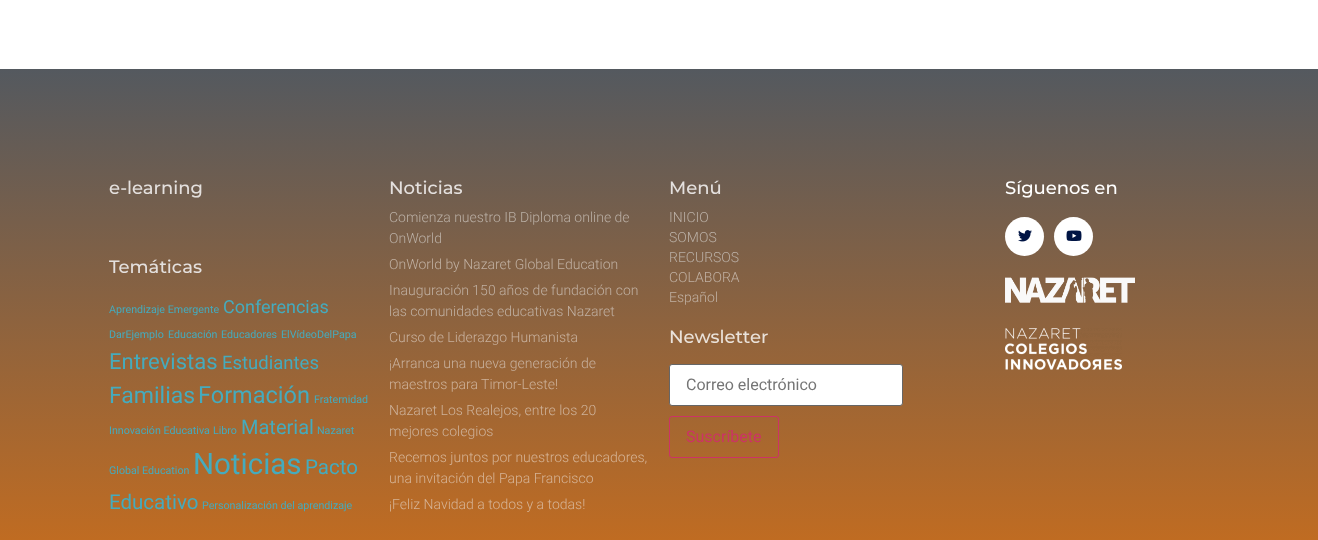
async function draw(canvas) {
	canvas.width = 1318;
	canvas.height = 540;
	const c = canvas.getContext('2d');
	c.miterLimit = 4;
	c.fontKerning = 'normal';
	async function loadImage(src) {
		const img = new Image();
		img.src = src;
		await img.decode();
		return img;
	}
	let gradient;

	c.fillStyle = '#fff';
	c.fillRect(0, 0, 1318, 540);
	gradient = c.createLinearGradient(659, 69, 659, 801);
	gradient.addColorStop(0, '#54595f');
	gradient.addColorStop(1, '#fb7600');
	c.fillStyle = gradient;
	c.fillRect(0, 69, 1318, 471);
	c.font = '500 18px Montserrat';
	c.fillStyle = '#e4e0de';
	c.fillText('e-learning', 109, 194);
	c.fillText('Temáticas', 109, 273);
	c.font = '10.7px Roboto';
	c.fillStyle = '#45abbd';
	c.fillText('Aprendizaje Emergente', 109, 313);
	c.font = '18px Roboto';
	c.fillText('Conferencias', 223, 313);
	c.font = '10.7px Roboto';
	for (const [text, x, y] of [
		['DarEjemplo', 109, 338],
		['Educación', 168, 338],
		['Educadores', 221, 338],
		['ElVídeoDelPapa', 281, 338],
	]) {
		c.fillText(text, x, y);
	}
	c.font = '22px Roboto';
	c.fillText('Entrevistas', 109, 369);
	c.font = '18.5px Roboto';
	c.fillText('Estudiantes', 222, 369);
	c.font = '23px Roboto';
	c.fillText('Familias', 109, 403);
	c.font = '23.5px Roboto';
	c.fillText('Formación', 198, 403);
	c.font = '10.7px Roboto';
	for (const [text, x, y] of [
		['Fraternidad', 314, 403],
		['Innovación Educativa', 109, 434],
		['Libro', 213, 434],
	]) {
		c.fillText(text, x, y);
	}
	c.font = '20px Roboto';
	c.fillText('Material', 241, 434);
	c.font = '10.7px Roboto';
	c.fillText('Nazaret', 317, 434);
	c.fillText('Global Education', 109, 474);
	c.font = '29.5px Roboto';
	c.fillText('Noticias', 193, 474);
	c.font = '20.5px Roboto';
	c.fillText('Pacto', 305, 474);
	c.fillText('Educativo', 109, 509);
	c.font = '10.7px Roboto';
	c.fillText('Personalización del aprendizaje', 202, 509);
	c.font = '500 18px Montserrat';
	c.fillStyle = '#e4e0de';
	c.fillText('Noticias', 389, 194);
	c.font = '300 14px Roboto';
	c.fillStyle = '#baafa5';
	c.fillText('Comienza nuestro IB Diploma online de', 389, 222);
	c.fillText('OnWorld', 389, 243);
	c.fillStyle = '#c0b0a2';
	for (const [text, x, y] of [
		['OnWorld by Nazaret Global Education', 389, 269],
		['Inauguración 150 años de fundación con', 389, 295],
		['las comunidades educativas Nazaret', 389, 316],
	]) {
		c.fillText(text, x, y);
	}
	c.fillStyle = '#c8b19e';
	c.fillText('Curso de Liderazgo Humanista', 389, 342);
	c.fillText('¡Arranca una nueva generación de', 389, 368);
	c.fillStyle = '#ceb29a';
	for (const [text, x, y] of [
		['maestros para Timor-Leste!', 389, 389],
		['Nazaret Los Realejos, entre los 20', 389, 415],
		['mejores colegios', 389, 436],
	]) {
		c.fillText(text, x, y);
	}
	c.fillStyle = '#d6b496';
	for (const [text, x, y] of [
		['Recemos juntos por nuestros educadores,', 389, 462],
		['una invitación del Papa Francisco', 389, 483],
		['¡Feliz Navidad a todos y a todas!', 389, 509],
	]) {
		c.fillText(text, x, y);
	}
	c.font = '500 18px Montserrat';
	c.fillStyle = '#e4e0de';
	c.fillText('Menú', 669, 194);
	c.font = '300 14px Roboto';
	c.fillStyle = '#baafa5';
	for (const [text, x, y] of [
		['INICIO', 669, 222],
		['SOMOS', 669, 242],
		['RECURSOS', 669, 262],
	]) {
		c.fillText(text, x, y);
	}
	c.fillStyle = '#c0b0a2';
	c.fillText('COLABORA', 669, 282);
	c.fillText('Español', 669, 302);
	c.font = '500 18px Montserrat';
	c.fillStyle = '#eae2da';
	c.fillText('Newsletter', 669, 343);
	c.fillStyle = '#fff';
	c.beginPath();
	c.roundRect(669.5, 364.5, 233, 41, 2.5);
	c.fill();
	c.strokeStyle = '#666';
	c.stroke();
	c.font = '16px Roboto';
	c.fillStyle = '#757575';
	c.fillText('Correo electrónico', 686, 390);
	c.beginPath();
	c.roundRect(669.5, 416.5, 109, 41, 2.5);
	c.strokeStyle = '#c36';
	c.stroke();
	c.fillStyle = '#c36';
	c.fillText('Suscríbete', 686, 442);
	c.font = '500 18px Montserrat';
	c.fillStyle = '#fff';
	c.fillText('Síguenos en', 1005, 194);
	c.beginPath();
	c.arc(1024.5, 236.5, 19.5, 0, 2 * Math.PI);
	c.fill();
	c.drawImage(await loadImage('img1.png'), 1018, 230, 14, 12);
	c.beginPath();
	c.arc(1073.5, 236.5, 19.5, 0, 2 * Math.PI);
	c.fill();
	c.drawImage(await loadImage('img2.png'), 1066, 230, 16, 11);
	c.drawImage(await loadImage('img3.png'), 1005, 277, 130, 26);
	c.drawImage(await loadImage('img4.png'), 1005, 328, 117, 42);
}

draw(document.querySelector('canvas'));
